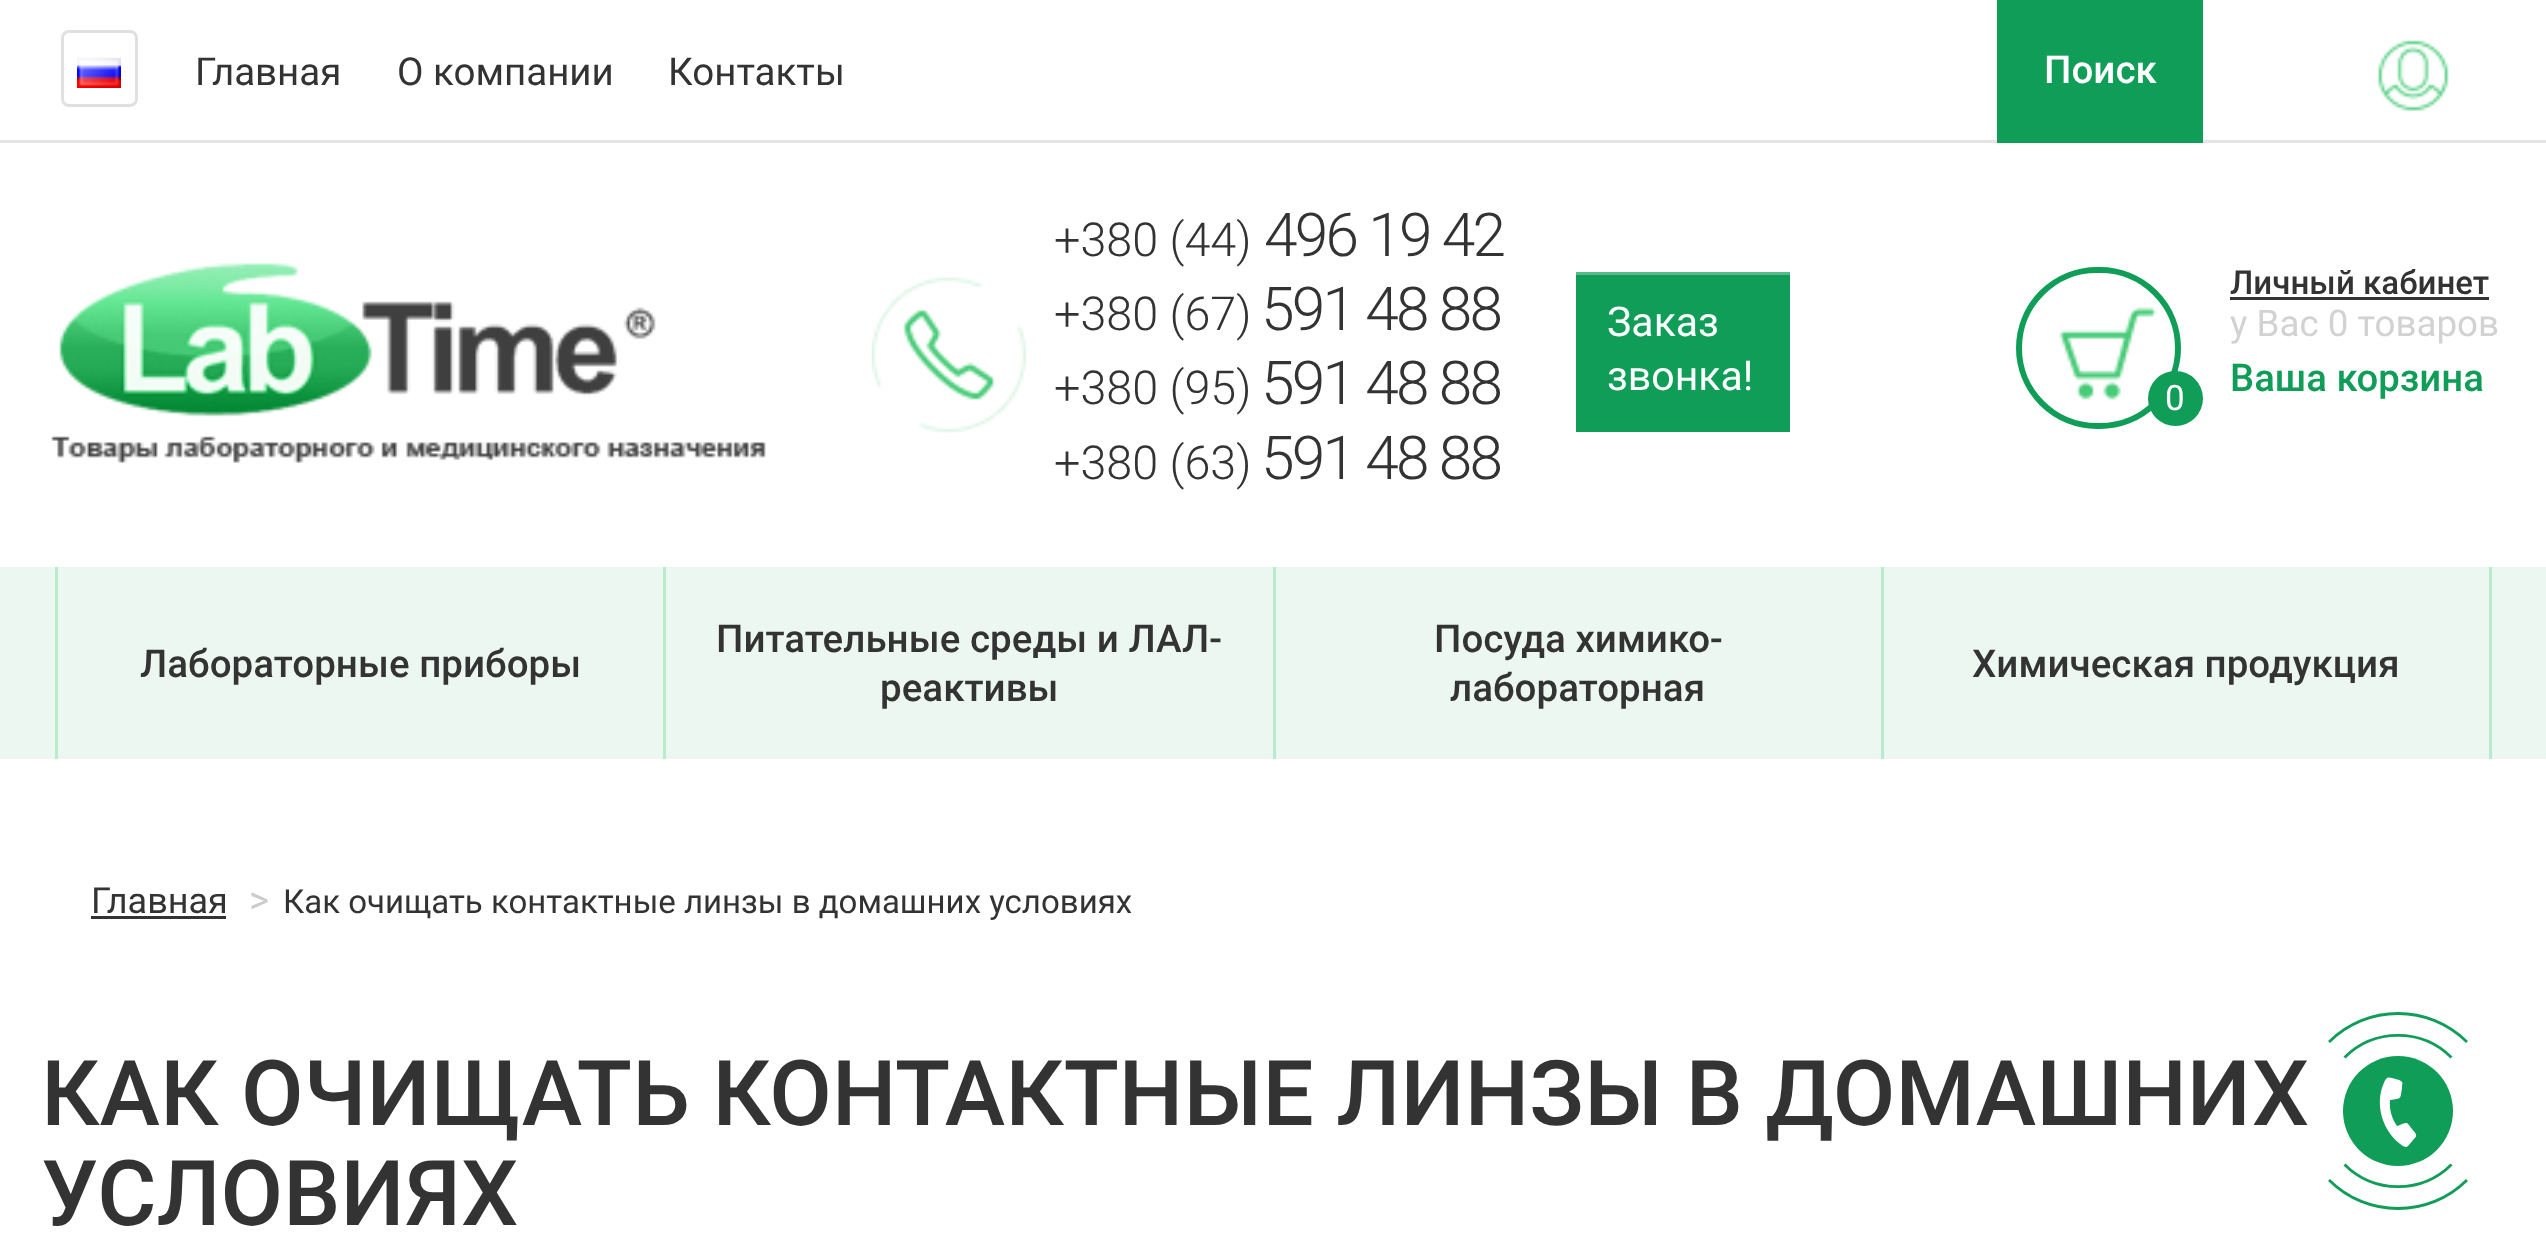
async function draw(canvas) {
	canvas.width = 2546;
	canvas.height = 1234;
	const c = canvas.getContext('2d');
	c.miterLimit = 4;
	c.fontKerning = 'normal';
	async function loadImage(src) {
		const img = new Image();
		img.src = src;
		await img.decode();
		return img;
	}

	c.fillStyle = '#fff';
	c.fillRect(0, 0, 2546, 1234);
	c.fillStyle = '#e5e5e5';
	c.fillRect(0, 140, 2546, 3);
	c.beginPath();
	c.roundRect(62.5, 31.5, 74, 74, 6.5);
	c.strokeStyle = '#e0e0e0';
	c.lineWidth = 3;
	c.stroke();
	c.drawImage(await loadImage('img1.png'), 77, 57, 44, 31);
	c.font = '38.5px Roboto';
	c.fillStyle = '#333';
	for (const [text, x, y] of [
		['Главная', 195, 85],
		['О компании', 397, 85],
		['Контакты', 668, 85],
	]) {
		c.fillText(text, x, y);
	}
	c.fillStyle = '#0f9d58';
	c.fillRect(1997, 0, 206, 143);
	c.font = '500 38.5px Roboto';
	c.fillStyle = '#fff';
	c.fillText('Поиск', 2044, 83);
	c.drawImage(await loadImage('img2.png'), 2378, 40, 71, 71);
	c.drawImage(await loadImage('img3.png'), 51, 263, 715, 200);
	c.drawImage(await loadImage('img4.png'), 871, 277, 156, 156);
	c.font = '300 46.75px Roboto';
	c.fillStyle = '#333';
	c.fillText('+380 (44)', 1054, 256);
	c.letterSpacing = '-2.75px';
	c.font = '300 60.5px Roboto';
	c.fillText('496 19 42', 1264, 256);
	c.letterSpacing = '0px';
	c.font = '300 46.75px Roboto';
	c.fillText('+380 (67)', 1054, 330);
	c.letterSpacing = '-2.75px';
	c.font = '300 60.5px Roboto';
	c.fillText('591 48 88', 1261, 330);
	c.letterSpacing = '0px';
	c.font = '300 46.75px Roboto';
	c.fillText('+380 (95)', 1054, 404);
	c.letterSpacing = '-2.75px';
	c.font = '300 60.5px Roboto';
	c.fillText('591 48 88', 1261, 404);
	c.letterSpacing = '0px';
	c.font = '300 46.75px Roboto';
	c.fillText('+380 (63)', 1054, 479);
	c.letterSpacing = '-2.75px';
	c.font = '300 60.5px Roboto';
	c.fillText('591 48 88', 1261, 479);
	c.fillStyle = '#0f9d58';
	c.fillRect(1576, 275, 214, 157);
	c.fillStyle = '#57ba8a';
	c.fillRect(1576, 272, 214, 3);
	c.letterSpacing = '0px';
	c.font = '41px Roboto';
	c.fillStyle = '#fff';
	c.fillText('Заказ', 1607, 336);
	c.fillText('звонка!', 1607, 390);
	c.beginPath();
	c.roundRect(2019, 270, 159, 156, 78);
	c.strokeStyle = '#0f9d58';
	c.lineWidth = 6;
	c.stroke();
	c.drawImage(await loadImage('img5.png'), 2059, 307, 98, 93);
	c.fillStyle = '#0f9d58';
	c.beginPath();
	c.arc(2175.5, 398.5, 27.5, 0, 2 * Math.PI);
	c.fill();
	c.font = '35px Roboto';
	c.fillStyle = '#fff';
	c.fillText('0', 2165, 410);
	c.font = '500 33px Roboto';
	c.fillStyle = '#333';
	c.fillText('Личный кабинет', 2230, 294);
	c.fillRect(2230, 297, 259, 3);
	c.font = '36.75px Roboto';
	c.fillStyle = '#d2d2d2';
	c.fillText('у Вас 0 товаров', 2230, 336);
	c.font = '500 38.25px Roboto';
	c.fillStyle = '#0f9d58';
	c.fillText('Ваша корзина', 2230, 391);
	c.fillStyle = '#ecf7f1';
	c.fillRect(0, 567, 2546, 192);
	c.fillStyle = '#b9eacb';
	c.fillRect(55, 567, 3, 192);
	c.font = '500 38.5px Roboto';
	c.fillStyle = '#333';
	c.fillText('Лабораторные приборы', 140, 677);
	c.fillStyle = '#b9eacb';
	c.fillRect(663, 567, 3, 192);
	c.fillStyle = '#333';
	c.fillText('Питательные среды и ЛАЛ-', 716, 652);
	c.fillText('реактивы', 880, 701);
	c.fillStyle = '#b9eacb';
	c.fillRect(1273, 567, 3, 192);
	c.fillStyle = '#333';
	c.fillText('Посуда химико-', 1434, 652);
	c.fillText('лабораторная', 1450, 701);
	c.fillStyle = '#b9eacb';
	c.fillRect(2489, 567, 3, 192);
	c.fillRect(1881, 567, 3, 192);
	c.fillStyle = '#333';
	c.fillText('Химическая продукция', 1972, 677);
	c.font = '36px Roboto';
	c.fillText('Главная', 91, 913);
	c.fillRect(91, 916, 135, 3);
	c.font = '38.5px Roboto';
	c.fillStyle = '#ccc';
	c.fillText('>', 249, 913);
	c.font = '33px Roboto';
	c.fillStyle = '#333';
	c.fillText('Как очищать контактные линзы в домашних условиях', 283, 913);
	c.font = '500 90.75px Roboto';
	c.fillText('КАК ОЧИЩАТЬ КОНТАКТНЫЕ ЛИНЗЫ В ДОМАШНИХ', 41, 1125);
	c.fillText('УСЛОВИЯХ', 41, 1225);
	c.fillStyle = '#0f9d58';
	c.beginPath();
	c.arc(2398, 1111, 55, 0, 2 * Math.PI);
	c.fill();
	c.beginPath();
	c.moveTo(2344.5, 1057.5);
	c.bezierCurveTo(2374, 1028, 2422, 1028, 2451.5, 1057.5);
	c.lineWidth = 2.8;
	c.stroke();
	c.beginPath();
	c.moveTo(2329, 1042);
	c.bezierCurveTo(2367, 1004, 2429, 1004, 2467, 1042);
	c.stroke();
	c.beginPath();
	c.moveTo(2451.5, 1164.5);
	c.bezierCurveTo(2422, 1194, 2374, 1194, 2344.5, 1164.5);
	c.stroke();
	c.beginPath();
	c.moveTo(2467, 1180);
	c.bezierCurveTo(2429, 1218, 2367, 1218, 2329, 1180);
	c.stroke();
	c.fillStyle = '#fff';
	c.beginPath();
	c.moveTo(2408, 1146);
	c.lineTo(2414, 1139);
	c.bezierCurveTo(2418, 1135, 2416, 1134, 2412, 1129);
	c.bezierCurveTo(2406, 1121, 2408, 1122, 2397, 1126);
	c.bezierCurveTo(2392, 1119, 2389, 1109, 2390, 1100);
	c.bezierCurveTo(2402, 1098, 2400, 1100, 2402, 1088);
	c.bezierCurveTo(2402, 1083, 2404, 1082, 2399, 1080);
	c.bezierCurveTo(2387, 1077, 2387, 1074, 2382, 1088);
	c.bezierCurveTo(2376, 1107, 2383, 1130, 2399, 1143);
	c.bezierCurveTo(2400, 1144, 2406, 1149, 2408, 1146);
	c.closePath();
	c.fill();
}

draw(document.querySelector('canvas'));
